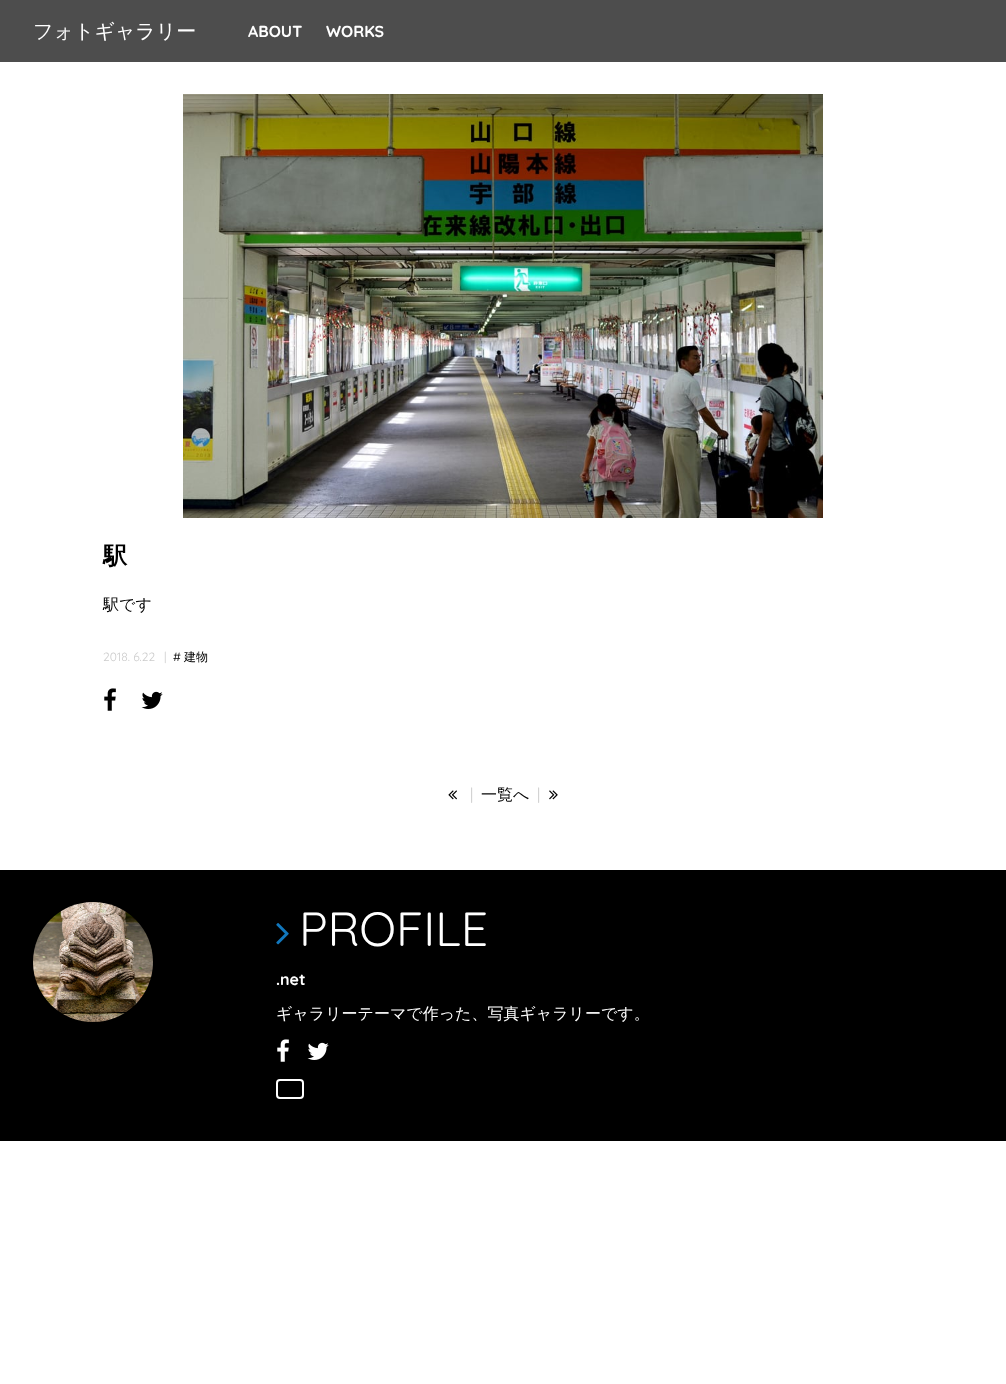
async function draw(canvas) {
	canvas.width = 1006;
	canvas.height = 1384;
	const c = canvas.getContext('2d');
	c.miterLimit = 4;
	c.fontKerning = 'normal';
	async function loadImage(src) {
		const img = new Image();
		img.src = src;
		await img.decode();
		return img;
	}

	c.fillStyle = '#fff';
	c.fillRect(0, 0, 1006, 1384);
	c.fillStyle = '#4d4d4d';
	c.fillRect(0, 0, 1006, 62);
	c.font = '500 20px WenQuanYi Zen Hei';
	c.fillStyle = '#fff';
	c.fillText('フォトギャラリー', 33, 38);
	c.font = 'bold 16px Quicksand';
	c.fillText('ABOUT', 248, 37);
	c.fillText('WORKS', 326, 37);
	c.drawImage(await loadImage('img1.png'), 183, 94, 640, 424);
	c.font = 'bold 24px WenQuanYi Zen Hei';
	c.fillStyle = '#000';
	c.fillText('駅', 103, 564);
	c.font = '500 16px WenQuanYi Zen Hei';
	c.fillText('駅です', 103, 610);
	c.font = '12px Quicksand';
	c.fillStyle = '#ccc';
	c.fillText('2018. 6.22', 103, 661);
	c.fillText('|', 164, 661);
	c.fillStyle = '#000';
	c.fillText('#', 173, 661);
	c.font = '500 12px WenQuanYi Zen Hei';
	c.fillText('建物', 184, 661);
	c.drawImage(await loadImage('img2.png'), 104, 688, 12, 23);
	c.drawImage(await loadImage('img3.png'), 141, 691, 22, 18);
	c.drawImage(await loadImage('img4.png'), 448, 790, 9, 10);
	c.font = '16px Quicksand';
	c.fillStyle = '#ccc';
	c.fillText('|', 470, 800);
	c.font = '500 16px WenQuanYi Zen Hei';
	c.fillStyle = '#000';
	c.fillText('一覧へ', 481, 800);
	c.font = '16px Quicksand';
	c.fillStyle = '#ccc';
	c.fillText('|', 537, 800);
	c.drawImage(await loadImage('img5.png'), 549, 790, 9, 10);
	c.fillStyle = '#000';
	c.fillRect(0, 870, 1006, 271);
	c.drawImage(await loadImage('img6.png'), 33, 902, 120, 120);
	c.drawImage(await loadImage('img7.png'), 276, 923, 13, 22);
	c.font = '48px Quicksand';
	c.fillStyle = '#fff';
	c.fillText('PROFILE', 299, 946);
	c.font = 'bold 16px Quicksand';
	c.fillText('.net', 276, 985);
	c.font = '500 16px WenQuanYi Zen Hei';
	c.fillText('ギャラリーテーマで作った、写真ギャラリーです。', 276, 1019);
	c.drawImage(await loadImage('img8.png'), 277, 1039, 12, 23);
	c.drawImage(await loadImage('img9.png'), 307, 1042, 22, 18);
	c.beginPath();
	c.roundRect(277, 1080, 26, 18, 3);
	c.strokeStyle = '#fff';
	c.lineWidth = 2;
	c.stroke();
}

draw(document.querySelector('canvas'));
